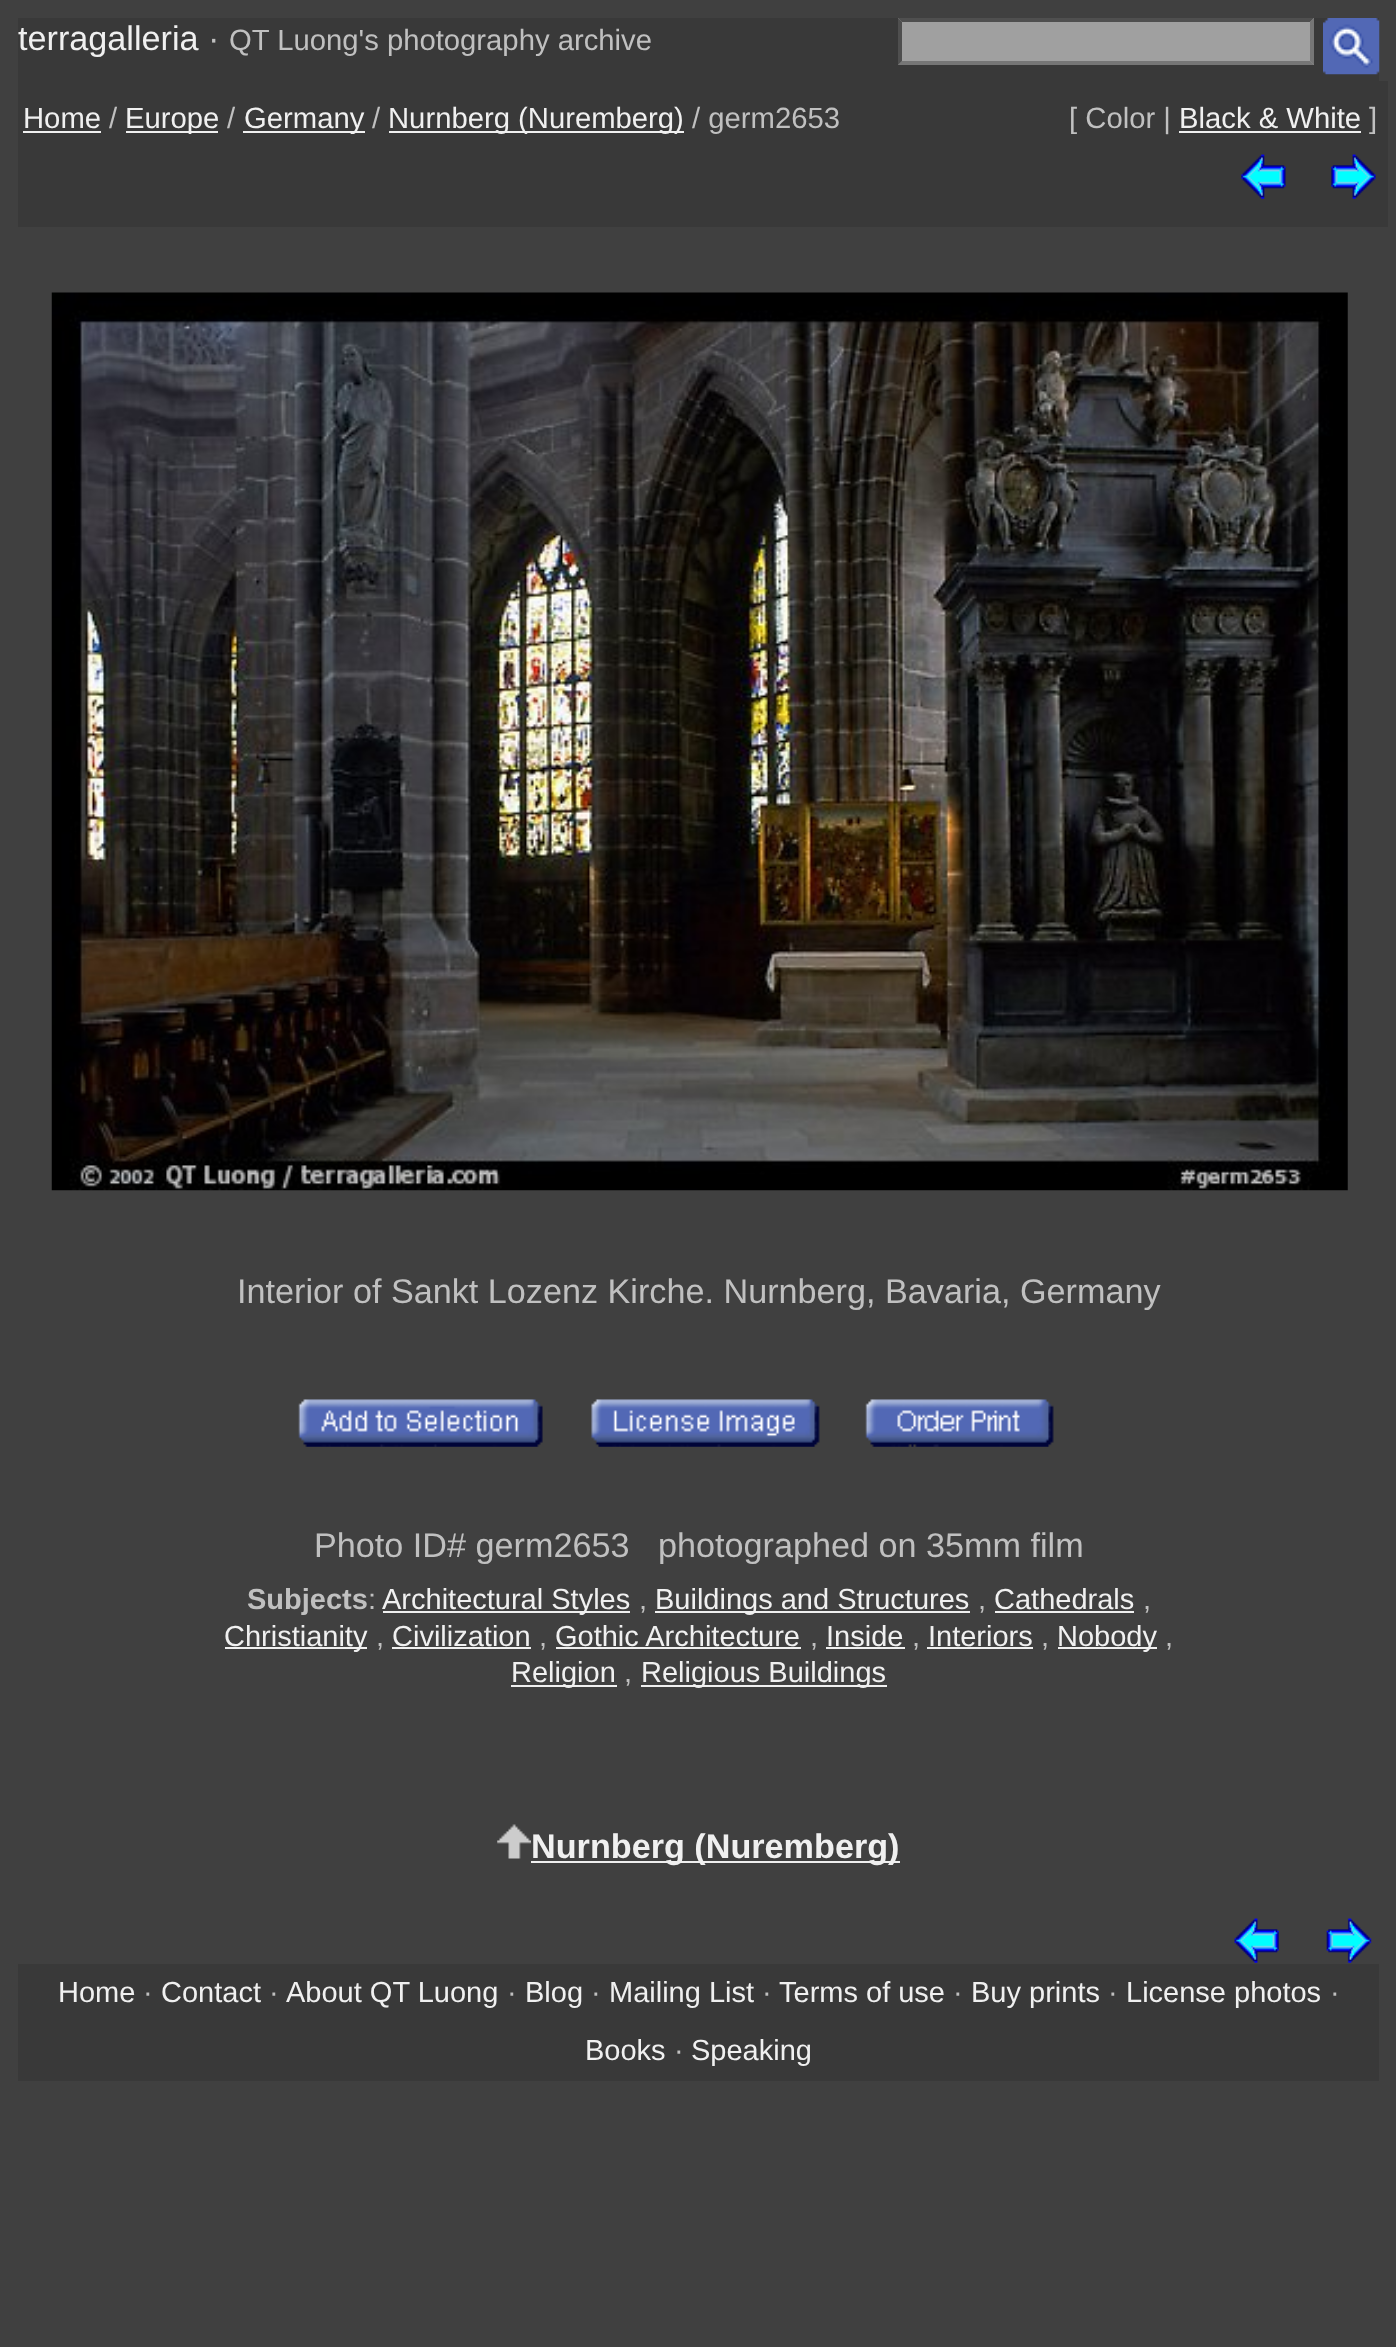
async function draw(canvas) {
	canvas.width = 1396;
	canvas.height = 2347;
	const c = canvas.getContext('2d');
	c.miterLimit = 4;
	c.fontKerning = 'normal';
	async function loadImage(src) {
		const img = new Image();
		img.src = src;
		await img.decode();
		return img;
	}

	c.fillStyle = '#404040';
	c.fillRect(0, 0, 1396, 2347);
	c.fillStyle = '#393939';
	c.fillRect(18, 18, 1361, 63);
	c.font = '34.2px Liberation Sans';
	c.fillStyle = '#f0f0f0';
	c.fillText('terragalleria', 18, 50);
	c.fillStyle = '#c0c0c0';
	c.fillText('·', 208, 50);
	c.font = '29.25px Liberation Sans';
	c.fillText('QT Luong\'s photography archive', 229, 50);
	c.fillStyle = '#a0a0a0';
	c.fillRect(898, 18, 416, 47);
	c.fillStyle = '#4f4f4f';
	c.beginPath();
	c.moveTo(898, 18);
	c.lineTo(1314, 18);
	c.lineTo(1310, 22);
	c.lineTo(902, 22);
	c.closePath();
	c.fill();
	c.fillStyle = '#767676';
	c.beginPath();
	c.moveTo(1314, 18);
	c.lineTo(1314, 65);
	c.lineTo(1310, 61);
	c.lineTo(1310, 22);
	c.closePath();
	c.fill();
	c.beginPath();
	c.moveTo(1314, 65);
	c.lineTo(898, 65);
	c.lineTo(902, 61);
	c.lineTo(1310, 61);
	c.closePath();
	c.fill();
	c.fillStyle = '#4f4f4f';
	c.beginPath();
	c.moveTo(898, 65);
	c.lineTo(898, 18);
	c.lineTo(902, 22);
	c.lineTo(902, 61);
	c.closePath();
	c.fill();
	c.drawImage(await loadImage('img1.png'), 1323, 18, 57, 57);
	c.fillStyle = '#393939';
	c.fillRect(18, 81, 1370, 146);
	c.fillStyle = '#f0f0f0';
	c.fillText('Home', 23, 128);
	c.fillRect(23, 131, 78, 2);
	c.fillStyle = '#c0c0c0';
	c.fillText('/', 109, 128);
	c.fillStyle = '#f0f0f0';
	c.fillRect(126, 131, 92, 2);
	c.fillText('Europe', 125, 128);
	c.fillStyle = '#c0c0c0';
	c.fillText('/', 227, 128);
	c.fillStyle = '#f0f0f0';
	c.fillRect(243, 131, 122, 2);
	c.fillText('Germany', 244, 128);
	c.fillStyle = '#c0c0c0';
	c.fillText('/', 372, 128);
	c.fillStyle = '#f0f0f0';
	c.fillRect(389, 131, 295, 2);
	c.fillText('Nurnberg (Nuremberg)', 388, 128);
	c.fillStyle = '#c0c0c0';
	c.fillText('/ germ2653', 692, 128);
	c.fillText('[ Color |', 1069, 128);
	c.fillStyle = '#f0f0f0';
	c.fillText('Black & White', 1179, 128);
	c.fillRect(1179, 131, 182, 2);
	c.fillStyle = '#c0c0c0';
	c.fillText(']', 1369, 128);
	c.drawImage(await loadImage('img2.png'), 1241, 154, 45, 45);
	c.drawImage(await loadImage('img3.png'), 1331, 154, 45, 45);
	c.drawImage(await loadImage('img4.png'), 51, 292, 1297, 899);
	c.font = '34.2px Liberation Sans';
	c.fillText('Interior of Sankt Lozenz Kirche. Nurnberg, Bavaria, Germany', 237, 1303);
	c.drawImage(await loadImage('img5.png'), 298, 1399, 245, 48);
	c.drawImage(await loadImage('img6.png'), 591, 1399, 229, 48);
	c.drawImage(await loadImage('img7.png'), 865, 1399, 189, 48);
	c.fillText('Photo ID# germ2653', 314, 1557);
	c.fillText('photographed on 35mm film', 658, 1557);
	c.font = 'bold 29px Liberation Sans';
	c.fillText('Subjects', 247, 1609);
	c.font = '29px Liberation Sans';
	c.fillText(':', 368, 1609);
	c.fillStyle = '#f0f0f0';
	c.fillRect(383, 1611, 247, 2);
	c.fillText('Architectural Styles', 382, 1609);
	c.fillStyle = '#c0c0c0';
	c.fillText(',', 639, 1609);
	c.fillStyle = '#f0f0f0';
	c.fillRect(655, 1611, 315, 2);
	c.fillText('Buildings and Structures', 655, 1609);
	c.fillStyle = '#c0c0c0';
	c.fillText(',', 978, 1609);
	c.fillStyle = '#f0f0f0';
	c.fillText('Cathedrals', 994, 1609);
	c.fillRect(995, 1611, 139, 2);
	c.fillStyle = '#c0c0c0';
	c.fillText(',', 1143, 1609);
	c.fillStyle = '#f0f0f0';
	c.fillRect(225, 1647, 142, 2);
	c.fillText('Christianity', 224, 1646);
	c.fillStyle = '#c0c0c0';
	c.fillText(',', 376, 1646);
	c.fillStyle = '#f0f0f0';
	c.fillText('Civilization', 392, 1646);
	c.fillRect(392, 1647, 139, 2);
	c.fillStyle = '#c0c0c0';
	c.fillText(',', 539, 1646);
	c.fillStyle = '#f0f0f0';
	c.fillText('Gothic Architecture', 555, 1646);
	c.fillRect(556, 1647, 245, 2);
	c.fillStyle = '#c0c0c0';
	c.fillText(',', 810, 1646);
	c.fillStyle = '#f0f0f0';
	c.fillText('Inside', 826, 1646);
	c.fillRect(826, 1647, 79, 2);
	c.fillStyle = '#c0c0c0';
	c.fillText(',', 912, 1646);
	c.fillStyle = '#f0f0f0';
	c.fillText('Interiors', 928, 1646);
	c.fillRect(927, 1647, 106, 2);
	c.fillStyle = '#c0c0c0';
	c.fillText(',', 1041, 1646);
	c.fillStyle = '#f0f0f0';
	c.fillRect(1058, 1647, 99, 2);
	c.fillText('Nobody', 1057, 1646);
	c.fillStyle = '#c0c0c0';
	c.fillText(',', 1165, 1646);
	c.fillStyle = '#f0f0f0';
	c.fillRect(511, 1685, 106, 2);
	c.fillText('Religion', 511, 1682);
	c.fillStyle = '#c0c0c0';
	c.fillText(',', 624, 1682);
	c.fillStyle = '#f0f0f0';
	c.fillRect(641, 1685, 246, 2);
	c.fillText('Religious Buildings', 641, 1682);
	c.drawImage(await loadImage('img8.png'), 497, 1824, 34, 35);
	c.fillRect(531, 1861, 369, 2);
	c.font = 'bold 34.2px Liberation Sans';
	c.fillText('Nurnberg (Nuremberg)', 531, 1858);
	c.drawImage(await loadImage('img9.png'), 1234, 1918, 45, 45);
	c.drawImage(await loadImage('img10.png'), 1326, 1918, 46, 45);
	c.fillStyle = '#393939';
	c.fillRect(18, 1964, 1361, 117);
	c.font = '29px Liberation Sans';
	c.fillStyle = '#f0f0f0';
	c.fillText('Home', 58, 2002);
	c.fillStyle = '#c0c0c0';
	c.fillText('·', 143, 2002);
	c.fillStyle = '#f0f0f0';
	c.fillText('Contact', 161, 2002);
	c.fillStyle = '#c0c0c0';
	c.fillText('·', 269, 2002);
	c.fillStyle = '#f0f0f0';
	c.fillText('About QT Luong', 286, 2002);
	c.fillStyle = '#c0c0c0';
	c.fillText('·', 507, 2002);
	c.fillStyle = '#f0f0f0';
	c.fillText('Blog', 525, 2002);
	c.fillStyle = '#c0c0c0';
	c.fillText('·', 591, 2002);
	c.fillStyle = '#f0f0f0';
	c.fillText('Mailing List', 609, 2002);
	c.fillStyle = '#c0c0c0';
	c.fillText('·', 762, 2002);
	c.fillStyle = '#f0f0f0';
	c.fillText('Terms of use', 779, 2002);
	c.fillStyle = '#c0c0c0';
	c.fillText('·', 953, 2002);
	c.fillStyle = '#f0f0f0';
	c.fillText('Buy prints', 971, 2002);
	c.fillStyle = '#c0c0c0';
	c.fillText('·', 1108, 2002);
	c.fillStyle = '#f0f0f0';
	c.fillText('License photos', 1126, 2002);
	c.fillStyle = '#c0c0c0';
	c.fillText('·', 1330, 2002);
	c.fillStyle = '#f0f0f0';
	c.fillText('Books', 585, 2060);
	c.fillStyle = '#c0c0c0';
	c.fillText('·', 674, 2060);
	c.fillStyle = '#f0f0f0';
	c.fillText('Speaking', 691, 2060);
}

draw(document.querySelector('canvas'));
